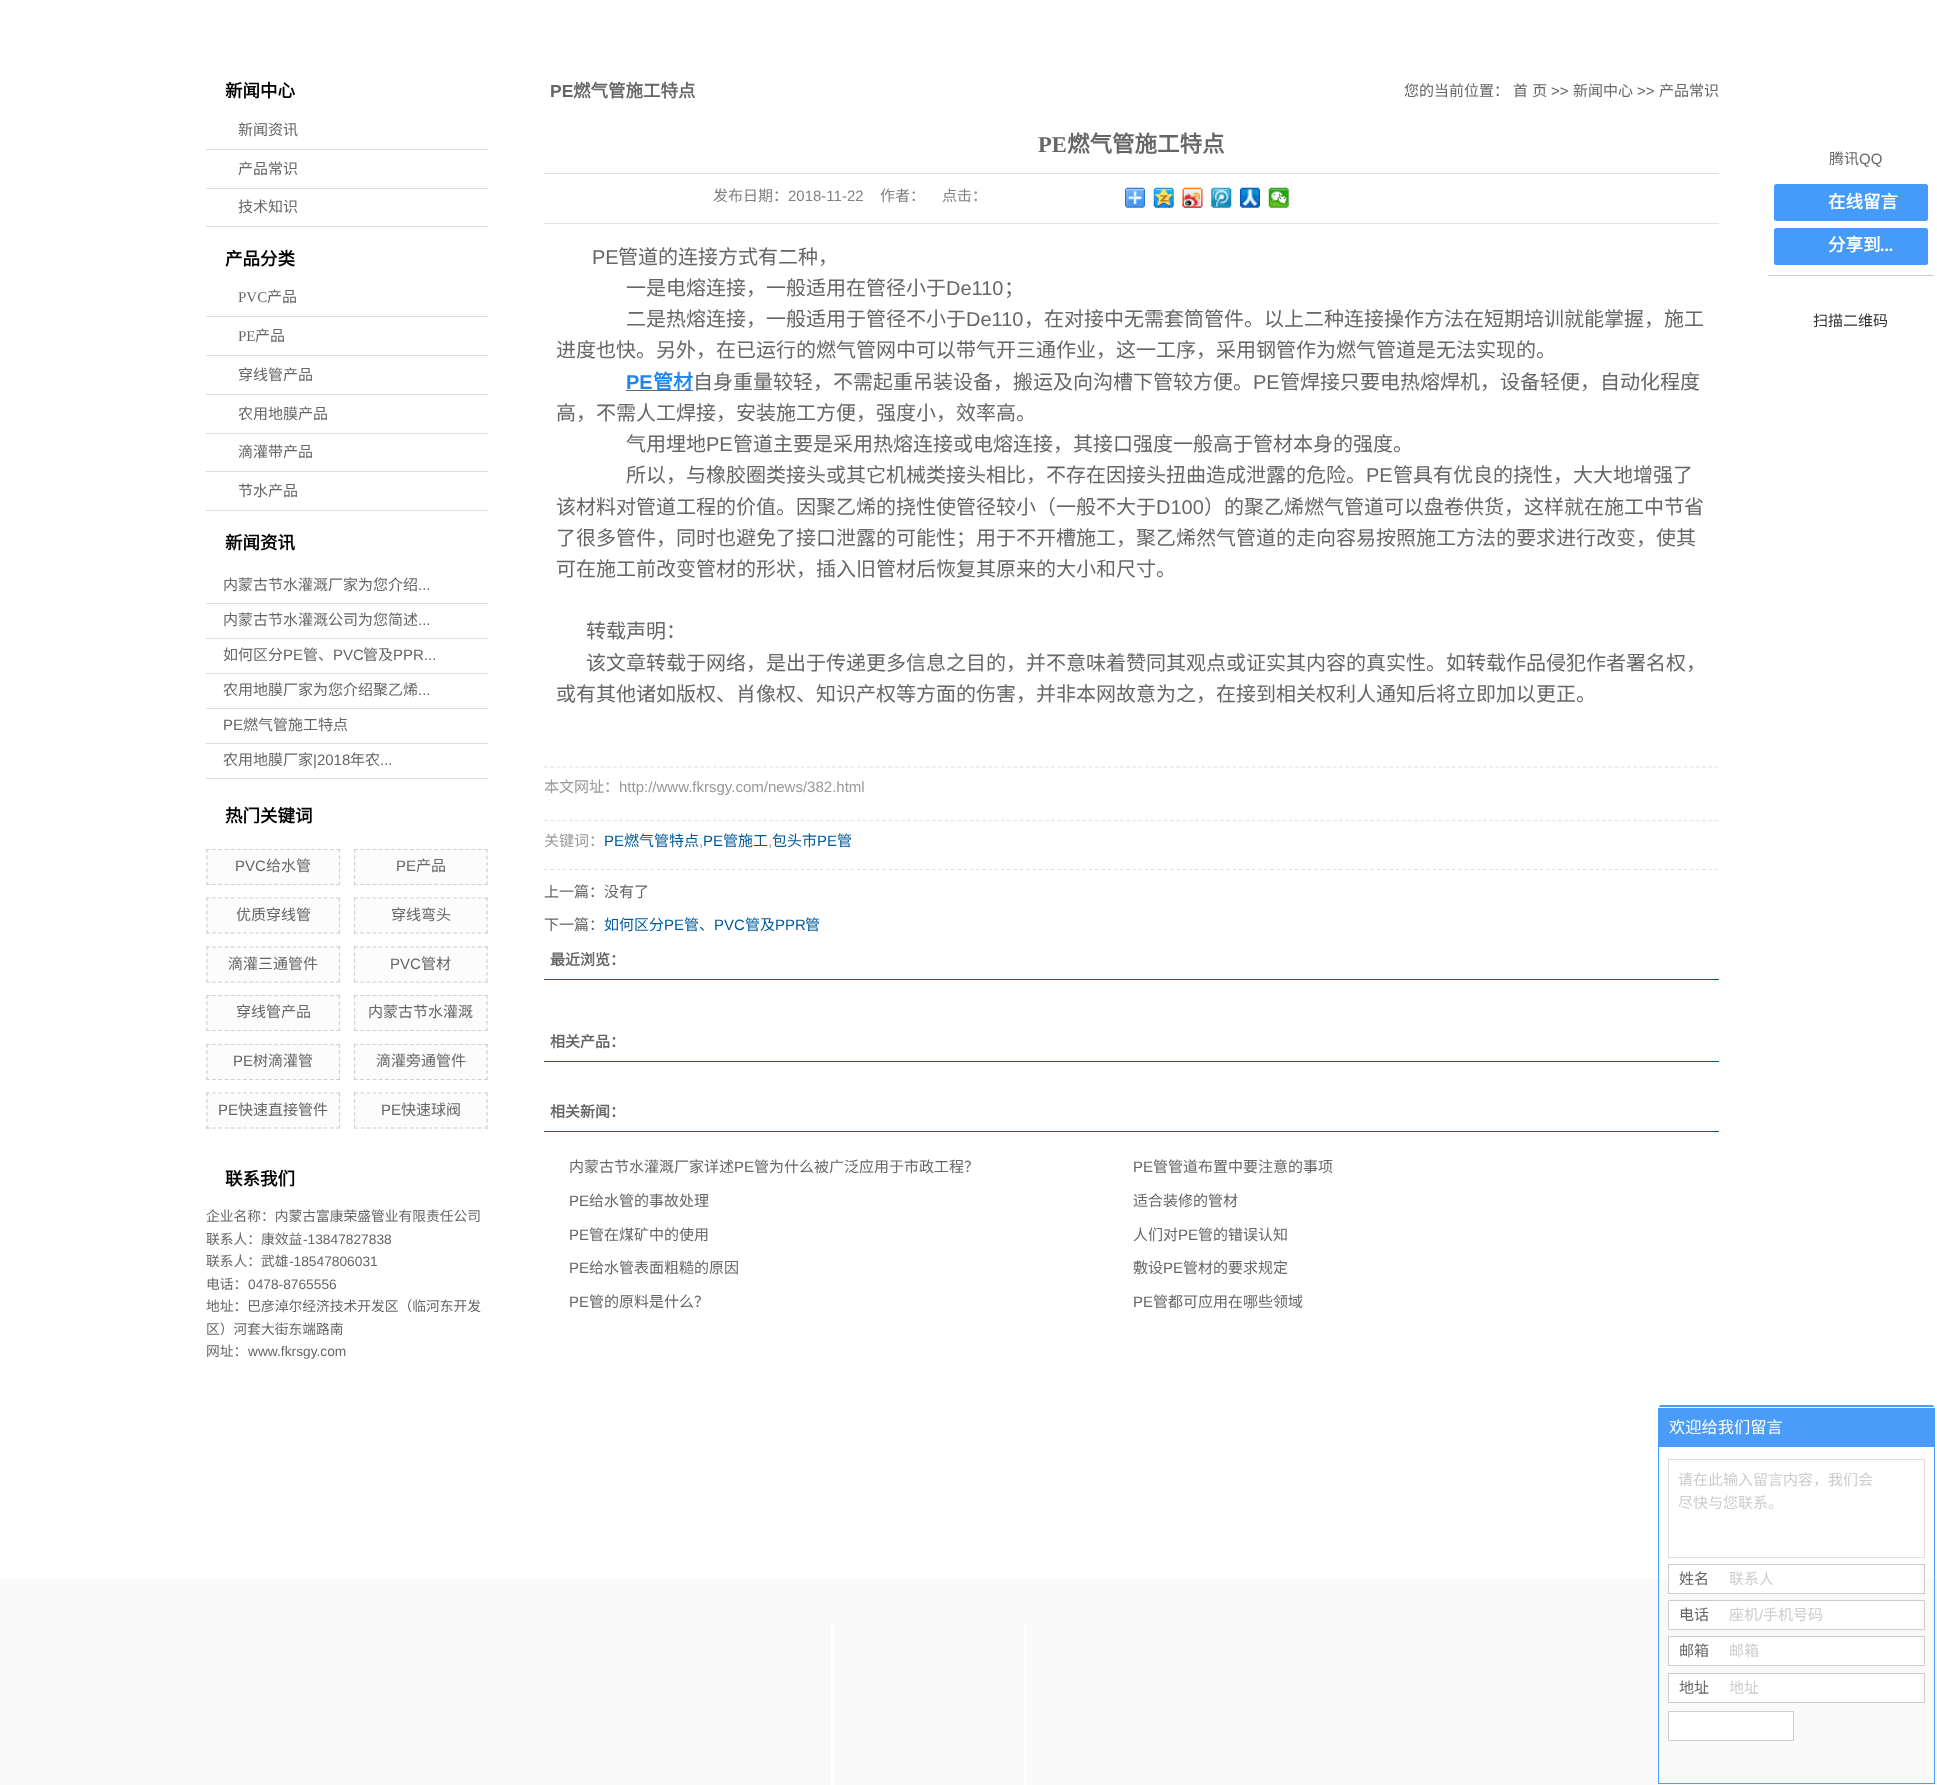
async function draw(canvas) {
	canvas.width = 1937;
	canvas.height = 1785;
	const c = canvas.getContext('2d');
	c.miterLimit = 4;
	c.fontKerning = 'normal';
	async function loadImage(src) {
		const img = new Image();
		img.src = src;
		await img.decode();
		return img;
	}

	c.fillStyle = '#fff';
	c.fillRect(0, 0, 1937, 1785);
	c.font = 'bold 17.5px Noto Sans CJK SC';
	c.fillStyle = '#000';
	c.fillText('新闻中心', 225, 97);
	c.fillStyle = '#ddd';
	c.fillRect(206, 149, 282, 1);
	c.font = '15px Noto Sans CJK SC';
	c.fillStyle = '#666';
	c.fillText('新闻资讯', 238, 135);
	c.fillStyle = '#ddd';
	c.fillRect(206, 188, 282, 1);
	c.fillStyle = '#666';
	c.fillText('产品常识', 238, 174);
	c.fillStyle = '#ddd';
	c.fillRect(206, 226, 282, 1);
	c.fillStyle = '#666';
	c.fillText('技术知识', 238, 212);
	c.font = 'bold 17.5px Noto Sans CJK SC';
	c.fillStyle = '#000';
	c.fillText('产品分类', 225, 265);
	c.fillStyle = '#ddd';
	c.fillRect(206, 316, 282, 1);
	c.font = '15px Liberation Serif';
	c.fillStyle = '#666';
	c.fillText('PVC', 238, 302);
	c.font = '15px Noto Sans CJK SC';
	c.fillText('产品', 267, 302);
	c.fillStyle = '#ddd';
	c.fillRect(206, 355, 282, 1);
	c.font = '15px Liberation Serif';
	c.fillStyle = '#666';
	c.fillText('PE', 238, 341);
	c.font = '15px Noto Sans CJK SC';
	c.fillText('产品', 255, 341);
	c.fillStyle = '#ddd';
	c.fillRect(206, 394, 282, 1);
	c.fillStyle = '#666';
	c.fillText('穿线管产品', 238, 380);
	c.fillStyle = '#ddd';
	c.fillRect(206, 433, 282, 1);
	c.fillStyle = '#666';
	c.fillText('农用地膜产品', 238, 419);
	c.fillStyle = '#ddd';
	c.fillRect(206, 471, 282, 1);
	c.fillStyle = '#666';
	c.fillText('滴灌带产品', 238, 457);
	c.fillStyle = '#ddd';
	c.fillRect(206, 510, 282, 1);
	c.fillStyle = '#666';
	c.fillText('节水产品', 238, 496);
	c.font = 'bold 17.5px Noto Sans CJK SC';
	c.fillStyle = '#000';
	c.fillText('新闻资讯', 225, 549);
	c.fillStyle = '#ddd';
	c.fillRect(206, 603, 282, 1);
	c.font = '15px Noto Sans CJK SC';
	c.fillStyle = '#666';
	c.fillText('内蒙古节水灌溉厂家为您介绍', 223, 590);
	c.font = '15px Liberation Sans';
	c.fillText('...', 418, 590);
	c.fillStyle = '#ddd';
	c.fillRect(206, 638, 282, 1);
	c.font = '15px Noto Sans CJK SC';
	c.fillStyle = '#666';
	c.fillText('内蒙古节水灌溉公司为您简述', 223, 625);
	c.font = '15px Liberation Sans';
	c.fillText('...', 418, 625);
	c.fillStyle = '#ddd';
	c.fillRect(206, 673, 282, 1);
	c.font = '15px Noto Sans CJK SC';
	c.fillStyle = '#666';
	c.fillText('如何区分', 223, 660);
	c.font = '15px Liberation Sans';
	c.fillText('PE', 283, 660);
	c.font = '15px Noto Sans CJK SC';
	c.fillText('管、', 303, 660);
	c.font = '15px Liberation Sans';
	c.fillText('PVC', 333, 660);
	c.font = '15px Noto Sans CJK SC';
	c.fillText('管及', 363, 660);
	c.font = '15px Liberation Sans';
	c.fillText('PPR...', 393, 660);
	c.fillStyle = '#ddd';
	c.fillRect(206, 708, 282, 1);
	c.font = '15px Noto Sans CJK SC';
	c.fillStyle = '#666';
	c.fillText('农用地膜厂家为您介绍聚乙烯', 223, 695);
	c.font = '15px Liberation Sans';
	c.fillText('...', 418, 695);
	c.fillStyle = '#ddd';
	c.fillRect(206, 743, 282, 1);
	c.fillStyle = '#666';
	c.fillText('PE', 223, 730);
	c.font = '15px Noto Sans CJK SC';
	c.fillText('燃气管施工特点', 243, 730);
	c.fillStyle = '#ddd';
	c.fillRect(206, 778, 282, 1);
	c.fillStyle = '#666';
	c.fillText('农用地膜厂家', 223, 765);
	c.font = '15px Liberation Sans';
	c.fillText('|2018', 313, 765);
	c.font = '15px Noto Sans CJK SC';
	c.fillText('年农', 350, 765);
	c.font = '15px Liberation Sans';
	c.fillText('...', 380, 765);
	c.font = 'bold 17.5px Noto Sans CJK SC';
	c.fillStyle = '#000';
	c.fillText('热门关键词', 225, 822);
	c.fillStyle = '#fcfcfc';
	c.fillRect(206, 849, 134, 36);
	c.beginPath();
	c.moveTo(206, 849.5);
	c.lineTo(340, 849.5);
	c.strokeStyle = '#d0d0d0';
	c.lineWidth = 1.2;
	c.setLineDash([3.75, 2.44]);
	c.stroke();
	c.beginPath();
	c.moveTo(339.5, 849);
	c.lineTo(339.5, 885);
	c.setLineDash([3.75, 2.75]);
	c.stroke();
	c.beginPath();
	c.moveTo(206, 884.5);
	c.lineTo(340, 884.5);
	c.setLineDash([3.75, 2.44]);
	c.stroke();
	c.beginPath();
	c.moveTo(207, 849);
	c.lineTo(207, 885);
	c.setLineDash([3.75, 2.75]);
	c.stroke();
	c.font = '15px Liberation Sans';
	c.fillStyle = '#666';
	c.fillText('PVC', 235, 871);
	c.font = '15px Noto Sans CJK SC';
	c.fillText('给水管', 266, 871);
	c.fillStyle = '#fcfcfc';
	c.fillRect(354, 849, 134, 36);
	c.beginPath();
	c.moveTo(354, 849.5);
	c.lineTo(487.5, 849.5);
	c.setLineDash([3.75, 2.44]);
	c.stroke();
	c.beginPath();
	c.moveTo(487, 849);
	c.lineTo(487, 885);
	c.setLineDash([3.75, 2.75]);
	c.stroke();
	c.beginPath();
	c.moveTo(354, 884.5);
	c.lineTo(487.5, 884.5);
	c.setLineDash([3.75, 2.44]);
	c.stroke();
	c.beginPath();
	c.moveTo(354.5, 849);
	c.lineTo(354.5, 885);
	c.setLineDash([3.75, 2.75]);
	c.stroke();
	c.font = '15px Liberation Sans';
	c.fillStyle = '#666';
	c.fillText('PE', 396, 871);
	c.font = '15px Noto Sans CJK SC';
	c.fillText('产品', 416, 871);
	c.fillStyle = '#fcfcfc';
	c.fillRect(206, 898, 134, 36);
	c.beginPath();
	c.moveTo(206, 898);
	c.lineTo(340, 898);
	c.setLineDash([3.75, 2.44]);
	c.stroke();
	c.beginPath();
	c.moveTo(339.5, 897.5);
	c.lineTo(339.5, 934);
	c.setLineDash([3.75, 2.75]);
	c.stroke();
	c.beginPath();
	c.moveTo(206, 933);
	c.lineTo(340, 933);
	c.setLineDash([3.75, 2.44]);
	c.stroke();
	c.beginPath();
	c.moveTo(207, 897.5);
	c.lineTo(207, 934);
	c.setLineDash([3.75, 2.75]);
	c.stroke();
	c.fillStyle = '#666';
	c.fillText('优质穿线管', 236, 920);
	c.fillStyle = '#fcfcfc';
	c.fillRect(354, 898, 134, 36);
	c.beginPath();
	c.moveTo(354, 898);
	c.lineTo(487.5, 898);
	c.setLineDash([3.75, 2.44]);
	c.stroke();
	c.beginPath();
	c.moveTo(487, 897.5);
	c.lineTo(487, 934);
	c.setLineDash([3.75, 2.75]);
	c.stroke();
	c.beginPath();
	c.moveTo(354, 933);
	c.lineTo(487.5, 933);
	c.setLineDash([3.75, 2.44]);
	c.stroke();
	c.beginPath();
	c.moveTo(354.5, 897.5);
	c.lineTo(354.5, 934);
	c.setLineDash([3.75, 2.75]);
	c.stroke();
	c.fillStyle = '#666';
	c.fillText('穿线弯头', 391, 920);
	c.fillStyle = '#fcfcfc';
	c.fillRect(206, 946, 134, 37);
	c.beginPath();
	c.moveTo(206, 947);
	c.lineTo(340, 947);
	c.setLineDash([3.75, 2.44]);
	c.stroke();
	c.beginPath();
	c.moveTo(339.5, 946);
	c.lineTo(339.5, 982.5);
	c.setLineDash([3.75, 2.75]);
	c.stroke();
	c.beginPath();
	c.moveTo(206, 982);
	c.lineTo(340, 982);
	c.setLineDash([3.75, 2.44]);
	c.stroke();
	c.beginPath();
	c.moveTo(207, 946);
	c.lineTo(207, 982.5);
	c.setLineDash([3.75, 2.75]);
	c.stroke();
	c.fillStyle = '#666';
	c.fillText('滴灌三通管件', 228, 969);
	c.fillStyle = '#fcfcfc';
	c.fillRect(354, 946, 134, 37);
	c.beginPath();
	c.moveTo(354, 947);
	c.lineTo(487.5, 947);
	c.setLineDash([3.75, 2.44]);
	c.stroke();
	c.beginPath();
	c.moveTo(487, 946);
	c.lineTo(487, 982.5);
	c.setLineDash([3.75, 2.75]);
	c.stroke();
	c.beginPath();
	c.moveTo(354, 982);
	c.lineTo(487.5, 982);
	c.setLineDash([3.75, 2.44]);
	c.stroke();
	c.beginPath();
	c.moveTo(354.5, 946);
	c.lineTo(354.5, 982.5);
	c.setLineDash([3.75, 2.75]);
	c.stroke();
	c.font = '15px Liberation Sans';
	c.fillStyle = '#666';
	c.fillText('PVC', 390, 969);
	c.font = '15px Noto Sans CJK SC';
	c.fillText('管材', 421, 969);
	c.fillStyle = '#fcfcfc';
	c.fillRect(206, 995, 134, 36);
	c.beginPath();
	c.moveTo(206, 995.5);
	c.lineTo(340, 995.5);
	c.setLineDash([3.75, 2.44]);
	c.stroke();
	c.beginPath();
	c.moveTo(339.5, 995);
	c.lineTo(339.5, 1031);
	c.setLineDash([3.75, 2.75]);
	c.stroke();
	c.beginPath();
	c.moveTo(206, 1030.5);
	c.lineTo(340, 1030.5);
	c.setLineDash([3.75, 2.44]);
	c.stroke();
	c.beginPath();
	c.moveTo(207, 995);
	c.lineTo(207, 1031);
	c.setLineDash([3.75, 2.75]);
	c.stroke();
	c.fillStyle = '#666';
	c.fillText('穿线管产品', 236, 1017);
	c.fillStyle = '#fcfcfc';
	c.fillRect(354, 995, 134, 36);
	c.beginPath();
	c.moveTo(354, 995.5);
	c.lineTo(487.5, 995.5);
	c.setLineDash([3.75, 2.44]);
	c.stroke();
	c.beginPath();
	c.moveTo(487, 995);
	c.lineTo(487, 1031);
	c.setLineDash([3.75, 2.75]);
	c.stroke();
	c.beginPath();
	c.moveTo(354, 1030.5);
	c.lineTo(487.5, 1030.5);
	c.setLineDash([3.75, 2.44]);
	c.stroke();
	c.beginPath();
	c.moveTo(354.5, 995);
	c.lineTo(354.5, 1031);
	c.setLineDash([3.75, 2.75]);
	c.stroke();
	c.fillStyle = '#666';
	c.fillText('内蒙古节水灌溉', 368, 1017);
	c.fillStyle = '#fcfcfc';
	c.fillRect(206, 1044, 134, 36);
	c.beginPath();
	c.moveTo(206, 1044.5);
	c.lineTo(340, 1044.5);
	c.setLineDash([3.75, 2.44]);
	c.stroke();
	c.beginPath();
	c.moveTo(339.5, 1044);
	c.lineTo(339.5, 1080);
	c.setLineDash([3.75, 2.75]);
	c.stroke();
	c.beginPath();
	c.moveTo(206, 1079.5);
	c.lineTo(340, 1079.5);
	c.setLineDash([3.75, 2.44]);
	c.stroke();
	c.beginPath();
	c.moveTo(207, 1044);
	c.lineTo(207, 1080);
	c.setLineDash([3.75, 2.75]);
	c.stroke();
	c.font = '15px Liberation Sans';
	c.fillStyle = '#666';
	c.fillText('PE', 233, 1066);
	c.font = '15px Noto Sans CJK SC';
	c.fillText('树滴灌管', 253, 1066);
	c.fillStyle = '#fcfcfc';
	c.fillRect(354, 1044, 134, 36);
	c.beginPath();
	c.moveTo(354, 1044.5);
	c.lineTo(487.5, 1044.5);
	c.setLineDash([3.75, 2.44]);
	c.stroke();
	c.beginPath();
	c.moveTo(487, 1044);
	c.lineTo(487, 1080);
	c.setLineDash([3.75, 2.75]);
	c.stroke();
	c.beginPath();
	c.moveTo(354, 1079.5);
	c.lineTo(487.5, 1079.5);
	c.setLineDash([3.75, 2.44]);
	c.stroke();
	c.beginPath();
	c.moveTo(354.5, 1044);
	c.lineTo(354.5, 1080);
	c.setLineDash([3.75, 2.75]);
	c.stroke();
	c.fillStyle = '#666';
	c.fillText('滴灌旁通管件', 376, 1066);
	c.fillStyle = '#fcfcfc';
	c.fillRect(206, 1093, 134, 36);
	c.beginPath();
	c.moveTo(206, 1093);
	c.lineTo(340, 1093);
	c.setLineDash([3.75, 2.44]);
	c.stroke();
	c.beginPath();
	c.moveTo(339.5, 1092.5);
	c.lineTo(339.5, 1129);
	c.setLineDash([3.75, 2.75]);
	c.stroke();
	c.beginPath();
	c.moveTo(206, 1128);
	c.lineTo(340, 1128);
	c.setLineDash([3.75, 2.44]);
	c.stroke();
	c.beginPath();
	c.moveTo(207, 1092.5);
	c.lineTo(207, 1129);
	c.setLineDash([3.75, 2.75]);
	c.stroke();
	c.font = '15px Liberation Sans';
	c.fillStyle = '#666';
	c.fillText('PE', 218, 1115);
	c.font = '15px Noto Sans CJK SC';
	c.fillText('快速直接管件', 238, 1115);
	c.fillStyle = '#fcfcfc';
	c.fillRect(354, 1093, 134, 36);
	c.beginPath();
	c.moveTo(354, 1093);
	c.lineTo(487.5, 1093);
	c.setLineDash([3.75, 2.44]);
	c.stroke();
	c.beginPath();
	c.moveTo(487, 1092.5);
	c.lineTo(487, 1129);
	c.setLineDash([3.75, 2.75]);
	c.stroke();
	c.beginPath();
	c.moveTo(354, 1128);
	c.lineTo(487.5, 1128);
	c.setLineDash([3.75, 2.44]);
	c.stroke();
	c.beginPath();
	c.moveTo(354.5, 1092.5);
	c.lineTo(354.5, 1129);
	c.setLineDash([3.75, 2.75]);
	c.stroke();
	c.font = '15px Liberation Sans';
	c.fillStyle = '#666';
	c.fillText('PE', 381, 1115);
	c.font = '15px Noto Sans CJK SC';
	c.fillText('快速球阀', 401, 1115);
	c.font = 'bold 17.5px Noto Sans CJK SC';
	c.fillStyle = '#000';
	c.fillText('联系我们', 225, 1185);
	c.font = '13.75px Noto Sans CJK SC';
	c.fillStyle = '#666';
	c.fillText('企业名称：内蒙古富康荣盛管业有限责任公司', 206, 1221);
	c.fillText('联系人：康效益', 206, 1244);
	c.font = '13.75px Liberation Sans';
	c.fillText('-13847827838', 303, 1244);
	c.font = '13.75px Noto Sans CJK SC';
	c.fillText('联系人：武雄', 206, 1266);
	c.font = '13.75px Liberation Sans';
	c.fillText('-18547806031', 289, 1266);
	c.font = '13.75px Noto Sans CJK SC';
	c.fillText('电话：', 206, 1289);
	c.font = '13.75px Liberation Sans';
	c.fillText('0478-8765556', 248, 1289);
	c.font = '13.75px Noto Sans CJK SC';
	for (const [text, x, y] of [
		['地址：巴彦淖尔经济技术开发区（临河东开发', 206, 1311],
		['区）河套大街东端路南', 206, 1334],
		['网址：', 206, 1356],
	]) {
		c.fillText(text, x, y);
	}
	c.font = '13.75px Liberation Sans';
	c.fillText('www.fkrsgy.com', 248, 1356);
	c.font = 'bold 17.5px Liberation Sans';
	c.fillText('PE', 550, 97);
	c.font = 'bold 17.5px Noto Sans CJK SC';
	c.fillText('燃气管施工特点', 573, 97);
	c.font = '15px Noto Sans CJK SC';
	c.fillText('您的当前位置：', 1404, 96);
	c.wordSpacing = '1px';
	c.fillText('首 页', 1513, 96);
	c.wordSpacing = '0px';
	c.font = '15px Liberation Sans';
	c.fillText('>>', 1551, 96);
	c.font = '15px Noto Sans CJK SC';
	c.fillText('新闻中心', 1573, 96);
	c.font = '15px Liberation Sans';
	c.fillText('>>', 1637, 96);
	c.font = '15px Noto Sans CJK SC';
	c.fillText('产品常识', 1659, 96);
	c.fillStyle = '#e0e1dc';
	c.fillRect(544, 173, 1175, 1);
	c.font = 'bold 22.5px Liberation Serif';
	c.fillStyle = '#666';
	c.fillText('PE', 1038, 152);
	c.font = 'bold 22.5px Noto Sans CJK SC';
	c.fillText('燃气管施工特点', 1067, 152);
	c.fillStyle = '#e1e4e6';
	c.fillRect(544, 223, 1175, 1);
	c.font = '15px Noto Sans CJK SC';
	c.fillStyle = '#808080';
	c.fillText('发布日期：', 713, 201);
	c.font = '15px Liberation Sans';
	c.fillText('2018-11-22', 788, 201);
	c.font = '15px Noto Sans CJK SC';
	c.fillText('作者：', 880, 201);
	c.fillText('点击：', 942, 201);
	c.drawImage(await loadImage('img1.png'), 1125, 187, 20, 21);
	c.drawImage(await loadImage('img2.png'), 1153, 187, 21, 21);
	c.drawImage(await loadImage('img3.png'), 1182, 187, 21, 21);
	c.drawImage(await loadImage('img4.png'), 1211, 187, 21, 21);
	c.drawImage(await loadImage('img5.png'), 1240, 187, 20, 21);
	c.drawImage(await loadImage('img6.png'), 1268, 187, 21, 21);
	c.font = '20px Liberation Sans';
	c.fillStyle = '#666';
	c.fillText('PE', 592, 264);
	c.font = '20px Noto Sans CJK SC';
	c.fillText('管道的连接方式有二种，', 618, 264);
	c.fillText('一是电熔连接，一般适用在管径小于', 626, 295);
	c.font = '20px Liberation Sans';
	c.fillText('De110', 946, 295);
	c.font = '20px Noto Sans CJK SC';
	c.fillText('；', 1004, 295);
	c.fillText('二是热熔连接，一般适用于管径不小于', 626, 326);
	c.font = '20px Liberation Sans';
	c.fillText('De110', 966, 326);
	c.font = '20px Noto Sans CJK SC';
	c.fillText('，在对接中无需套筒管件。以上二种连接操作方法在短期培训就能掌握，施工', 1024, 326);
	c.fillText('进度也快。另外，在已运行的燃气管网中可以带气开三通作业，这一工序，采用钢管作为燃气管道是无法实现的。', 556, 357);
	c.font = 'bold 20px Liberation Sans';
	c.fillStyle = '#2086ee';
	c.fillText('PE', 626, 389);
	c.fillStyle = '#666';
	c.fillRect(626, 390, 67, 1);
	c.font = 'bold 20px Noto Sans CJK SC';
	c.fillStyle = '#2086ee';
	c.fillText('管材', 653, 389);
	c.font = '20px Noto Sans CJK SC';
	c.fillStyle = '#666';
	c.fillText('自身重量较轻，不需起重吊装设备，搬运及向沟槽下管较方便。', 693, 389);
	c.font = '20px Liberation Sans';
	c.fillText('PE', 1253, 389);
	c.font = '20px Noto Sans CJK SC';
	for (const [text, x, y] of [
		['管焊接只要电热熔焊机，设备轻便，自动化程度', 1280, 389],
		['高，不需人工焊接，安装施工方便，强度小，效率高。', 556, 420],
		['气用埋地', 626, 451],
	]) {
		c.fillText(text, x, y);
	}
	c.font = '20px Liberation Sans';
	c.fillText('PE', 706, 451);
	c.font = '20px Noto Sans CJK SC';
	c.fillText('管道主要是采用热熔连接或电熔连接，其接口强度一般高于管材本身的强度。', 733, 451);
	c.fillText('所以，与橡胶圈类接头或其它机械类接头相比，不存在因接头扭曲造成泄露的危险。', 626, 482);
	c.font = '20px Liberation Sans';
	c.fillText('PE', 1366, 482);
	c.font = '20px Noto Sans CJK SC';
	c.fillText('管具有优良的挠性，大大地增强了', 1393, 482);
	c.fillText('该材料对管道工程的价值。因聚乙烯的挠性使管径较小（一般不大于', 556, 514);
	c.font = '20px Liberation Sans';
	c.fillText('D100', 1156, 514);
	c.font = '20px Noto Sans CJK SC';
	for (const [text, x, y] of [
		['）的聚乙烯燃气管道可以盘卷供货，这样就在施工中节省', 1204, 514],
		['了很多管件，同时也避免了接口泄露的可能性；用于不开槽施工，聚乙烯然气管道的走向容易按照施工方法的要求进行改变，使其', 556, 545],
		['可在施工前改变管材的形状，插入旧管材后恢复其原来的大小和尺寸。', 556, 576],
		['转载声明：', 586, 638],
		['该文章转载于网络，是出于传递更多信息之目的，并不意味着赞同其观点或证实其内容的真实性。如转载作品侵犯作者署名权，', 586, 670],
		['或有其他诸如版权、肖像权、知识产权等方面的伤害，并非本网故意为之，在接到相关权利人通知后将立即加以更正。', 556, 701],
	]) {
		c.fillText(text, x, y);
	}
	c.beginPath();
	c.moveTo(544, 767);
	c.lineTo(1719, 767);
	c.strokeStyle = '#e0e1dc';
	c.setLineDash([3.75, 2.51]);
	c.stroke();
	c.font = '15px Noto Sans CJK SC';
	c.fillStyle = '#999';
	c.fillText('本文网址：', 544, 792);
	c.font = '15px Liberation Sans';
	c.fillText('http://www.fkrsgy.com/news/382.html', 619, 792);
	c.beginPath();
	c.moveTo(544, 820.5);
	c.lineTo(1719, 820.5);
	c.stroke();
	c.font = '15px Noto Sans CJK SC';
	c.fillText('关键词：', 544, 846);
	c.font = '15px Liberation Sans';
	c.fillStyle = '#005a98';
	c.fillText('PE', 604, 846);
	c.font = '15px Noto Sans CJK SC';
	c.fillText('燃气管特点', 624, 846);
	c.font = '15px Liberation Sans';
	c.fillStyle = '#999';
	c.fillText(',', 699, 846);
	c.fillStyle = '#005a98';
	c.fillText('PE', 703, 846);
	c.font = '15px Noto Sans CJK SC';
	c.fillText('管施工', 723, 846);
	c.font = '15px Liberation Sans';
	c.fillStyle = '#999';
	c.fillText(',', 768, 846);
	c.font = '15px Noto Sans CJK SC';
	c.fillStyle = '#005a98';
	c.fillText('包头市', 772, 846);
	c.font = '15px Liberation Sans';
	c.fillText('PE', 817, 846);
	c.font = '15px Noto Sans CJK SC';
	c.fillText('管', 837, 846);
	c.beginPath();
	c.moveTo(544, 869.5);
	c.lineTo(1719, 869.5);
	c.stroke();
	c.fillStyle = '#666';
	c.fillText('上一篇：没有了', 544, 897);
	c.fillText('下一篇：', 544, 930);
	c.fillStyle = '#005a98';
	c.fillText('如何区分', 604, 930);
	c.font = '15px Liberation Sans';
	c.fillText('PE', 664, 930);
	c.font = '15px Noto Sans CJK SC';
	c.fillText('管、', 684, 930);
	c.font = '15px Liberation Sans';
	c.fillText('PVC', 714, 930);
	c.font = '15px Noto Sans CJK SC';
	c.fillText('管及', 745, 930);
	c.font = '15px Liberation Sans';
	c.fillText('PPR', 775, 930);
	c.font = '15px Noto Sans CJK SC';
	c.fillText('管', 805, 930);
	c.fillStyle = '#0055ac';
	c.fillRect(544, 979, 1175, 1);
	c.font = 'bold 15px Noto Sans CJK SC';
	c.fillStyle = '#666';
	c.fillText('最近浏览：', 550, 965);
	c.fillStyle = '#0055ac';
	c.fillRect(544, 1061, 1175, 1);
	c.fillStyle = '#666';
	c.fillText('相关产品：', 550, 1047);
	c.fillStyle = '#0055ac';
	c.fillRect(544, 1131, 1175, 1);
	c.fillStyle = '#666';
	c.fillText('相关新闻：', 550, 1117);
	c.font = '15px Noto Sans CJK SC';
	c.fillText('内蒙古节水灌溉厂家详述', 569, 1172);
	c.font = '15px Liberation Sans';
	c.fillText('PE', 734, 1172);
	c.font = '15px Noto Sans CJK SC';
	c.fillText('管为什么被广泛应用于市政工程？', 754, 1172);
	c.font = '15px Liberation Sans';
	c.fillText('PE', 1133, 1172);
	c.font = '15px Noto Sans CJK SC';
	c.fillText('管管道布置中要注意的事项', 1153, 1172);
	c.font = '15px Liberation Sans';
	c.fillText('PE', 569, 1206);
	c.font = '15px Noto Sans CJK SC';
	c.fillText('给水管的事故处理', 589, 1206);
	c.fillText('适合装修的管材', 1133, 1206);
	c.font = '15px Liberation Sans';
	c.fillText('PE', 569, 1240);
	c.font = '15px Noto Sans CJK SC';
	c.fillText('管在煤矿中的使用', 589, 1240);
	c.fillText('人们对', 1133, 1240);
	c.font = '15px Liberation Sans';
	c.fillText('PE', 1178, 1240);
	c.font = '15px Noto Sans CJK SC';
	c.fillText('管的错误认知', 1198, 1240);
	c.font = '15px Liberation Sans';
	c.fillText('PE', 569, 1273);
	c.font = '15px Noto Sans CJK SC';
	c.fillText('给水管表面粗糙的原因', 589, 1273);
	c.fillText('敷设', 1133, 1273);
	c.font = '15px Liberation Sans';
	c.fillText('PE', 1163, 1273);
	c.font = '15px Noto Sans CJK SC';
	c.fillText('管材的要求规定', 1183, 1273);
	c.font = '15px Liberation Sans';
	c.fillText('PE', 569, 1307);
	c.font = '15px Noto Sans CJK SC';
	c.fillText('管的原料是什么？', 589, 1307);
	c.font = '15px Liberation Sans';
	c.fillText('PE', 1133, 1307);
	c.font = '15px Noto Sans CJK SC';
	c.fillText('管都可应用在哪些领域', 1153, 1307);
	c.fillText('腾讯', 1829, 164);
	c.font = '15px Liberation Sans';
	c.fillText('QQ', 1859, 164);
	c.fillStyle = '#459afa';
	c.beginPath();
	c.roundRect(1774, 184, 154, 37, 2.5);
	c.fill();
	c.font = 'bold 17.5px Noto Sans CJK SC';
	c.fillStyle = '#fff';
	c.fillText('在线留言', 1828, 208);
	c.fillStyle = '#459afa';
	c.beginPath();
	c.roundRect(1774, 228, 154, 37, 2.5);
	c.fill();
	c.fillStyle = '#fff';
	c.fillText('分享到', 1828, 251);
	c.font = 'bold 17.5px Liberation Serif';
	c.fillText('...', 1880, 251);
	c.fillStyle = '#ccc';
	c.fillRect(1768, 275, 166, 1);
	c.font = '15px Noto Sans CJK SC';
	c.fillStyle = '#333';
	c.fillText('扫描二维码', 1813, 326);
	for (const [x, y, w, h, color] of [
		[1660, 1405, 273, 1, '#4a9cf9'],
		[1659, 1406, 275, 1, '#4a9cf9'],
		[1658, 1408, 277, 38, '#4a9cf9'],
	]) {
		c.fillStyle = color;
		c.fillRect(x, y, w, h);
	}
	c.font = '16.25px Noto Sans CJK SC';
	c.fillStyle = '#fff';
	c.fillText('欢迎给我们留言', 1669, 1433);
	c.fillStyle = '#f9f9f9';
	c.fillRect(0, 1579, 1937, 206);
	c.strokeStyle = '#4a9cf9';
	c.lineWidth = 1;
	c.setLineDash([]);
	c.strokeRect(1658.5, 1446.5, 276, 337);
	c.strokeStyle = '#dedede';
	c.strokeRect(1668.5, 1459.5, 256, 98);
	c.font = '15px Noto Sans CJK SC';
	c.fillStyle = '#ccc';
	c.fillText('请在此输入留言内容，我们会', 1678, 1485);
	c.fillText('尽快与您联系。', 1678, 1508);
	c.fillStyle = '#fff';
	c.fillRect(1669, 1579, 255, 14);
	c.strokeStyle = '#ccc';
	c.strokeRect(1668.5, 1564.5, 256, 29);
	c.fillStyle = '#666';
	c.fillText('姓名', 1679, 1584);
	c.fillStyle = '#ccc';
	c.fillText('联系人', 1729, 1584);
	c.fillStyle = '#fff';
	c.beginPath();
	c.rect(1668.5, 1600.5, 256, 29);
	c.fill();
	c.stroke();
	c.fillStyle = '#666';
	c.fillText('电话', 1679, 1620);
	c.fillStyle = '#ccc';
	c.fillText('座机', 1729, 1620);
	c.font = '15px Liberation Sans';
	c.fillText('/', 1759, 1620);
	c.font = '15px Noto Sans CJK SC';
	c.fillText('手机号码', 1763, 1620);
	c.fillStyle = '#fff';
	c.beginPath();
	c.rect(1668.5, 1636.5, 256, 29);
	c.fill();
	c.stroke();
	c.fillStyle = '#666';
	c.fillText('邮箱', 1679, 1656);
	c.fillStyle = '#ccc';
	c.fillText('邮箱', 1729, 1656);
	c.fillStyle = '#fff';
	c.beginPath();
	c.rect(1668.5, 1673.5, 256, 29);
	c.fill();
	c.stroke();
	c.fillStyle = '#666';
	c.fillText('地址', 1679, 1693);
	c.fillStyle = '#ccc';
	c.fillText('地址', 1729, 1693);
	c.fillStyle = '#fff';
	c.beginPath();
	c.rect(1668.5, 1711.5, 125, 29);
	c.fill();
	c.stroke();
	c.fillRect(831, 1623, 3, 162);
	c.fillRect(1024, 1623, 3, 162);
}

draw(document.querySelector('canvas'));
